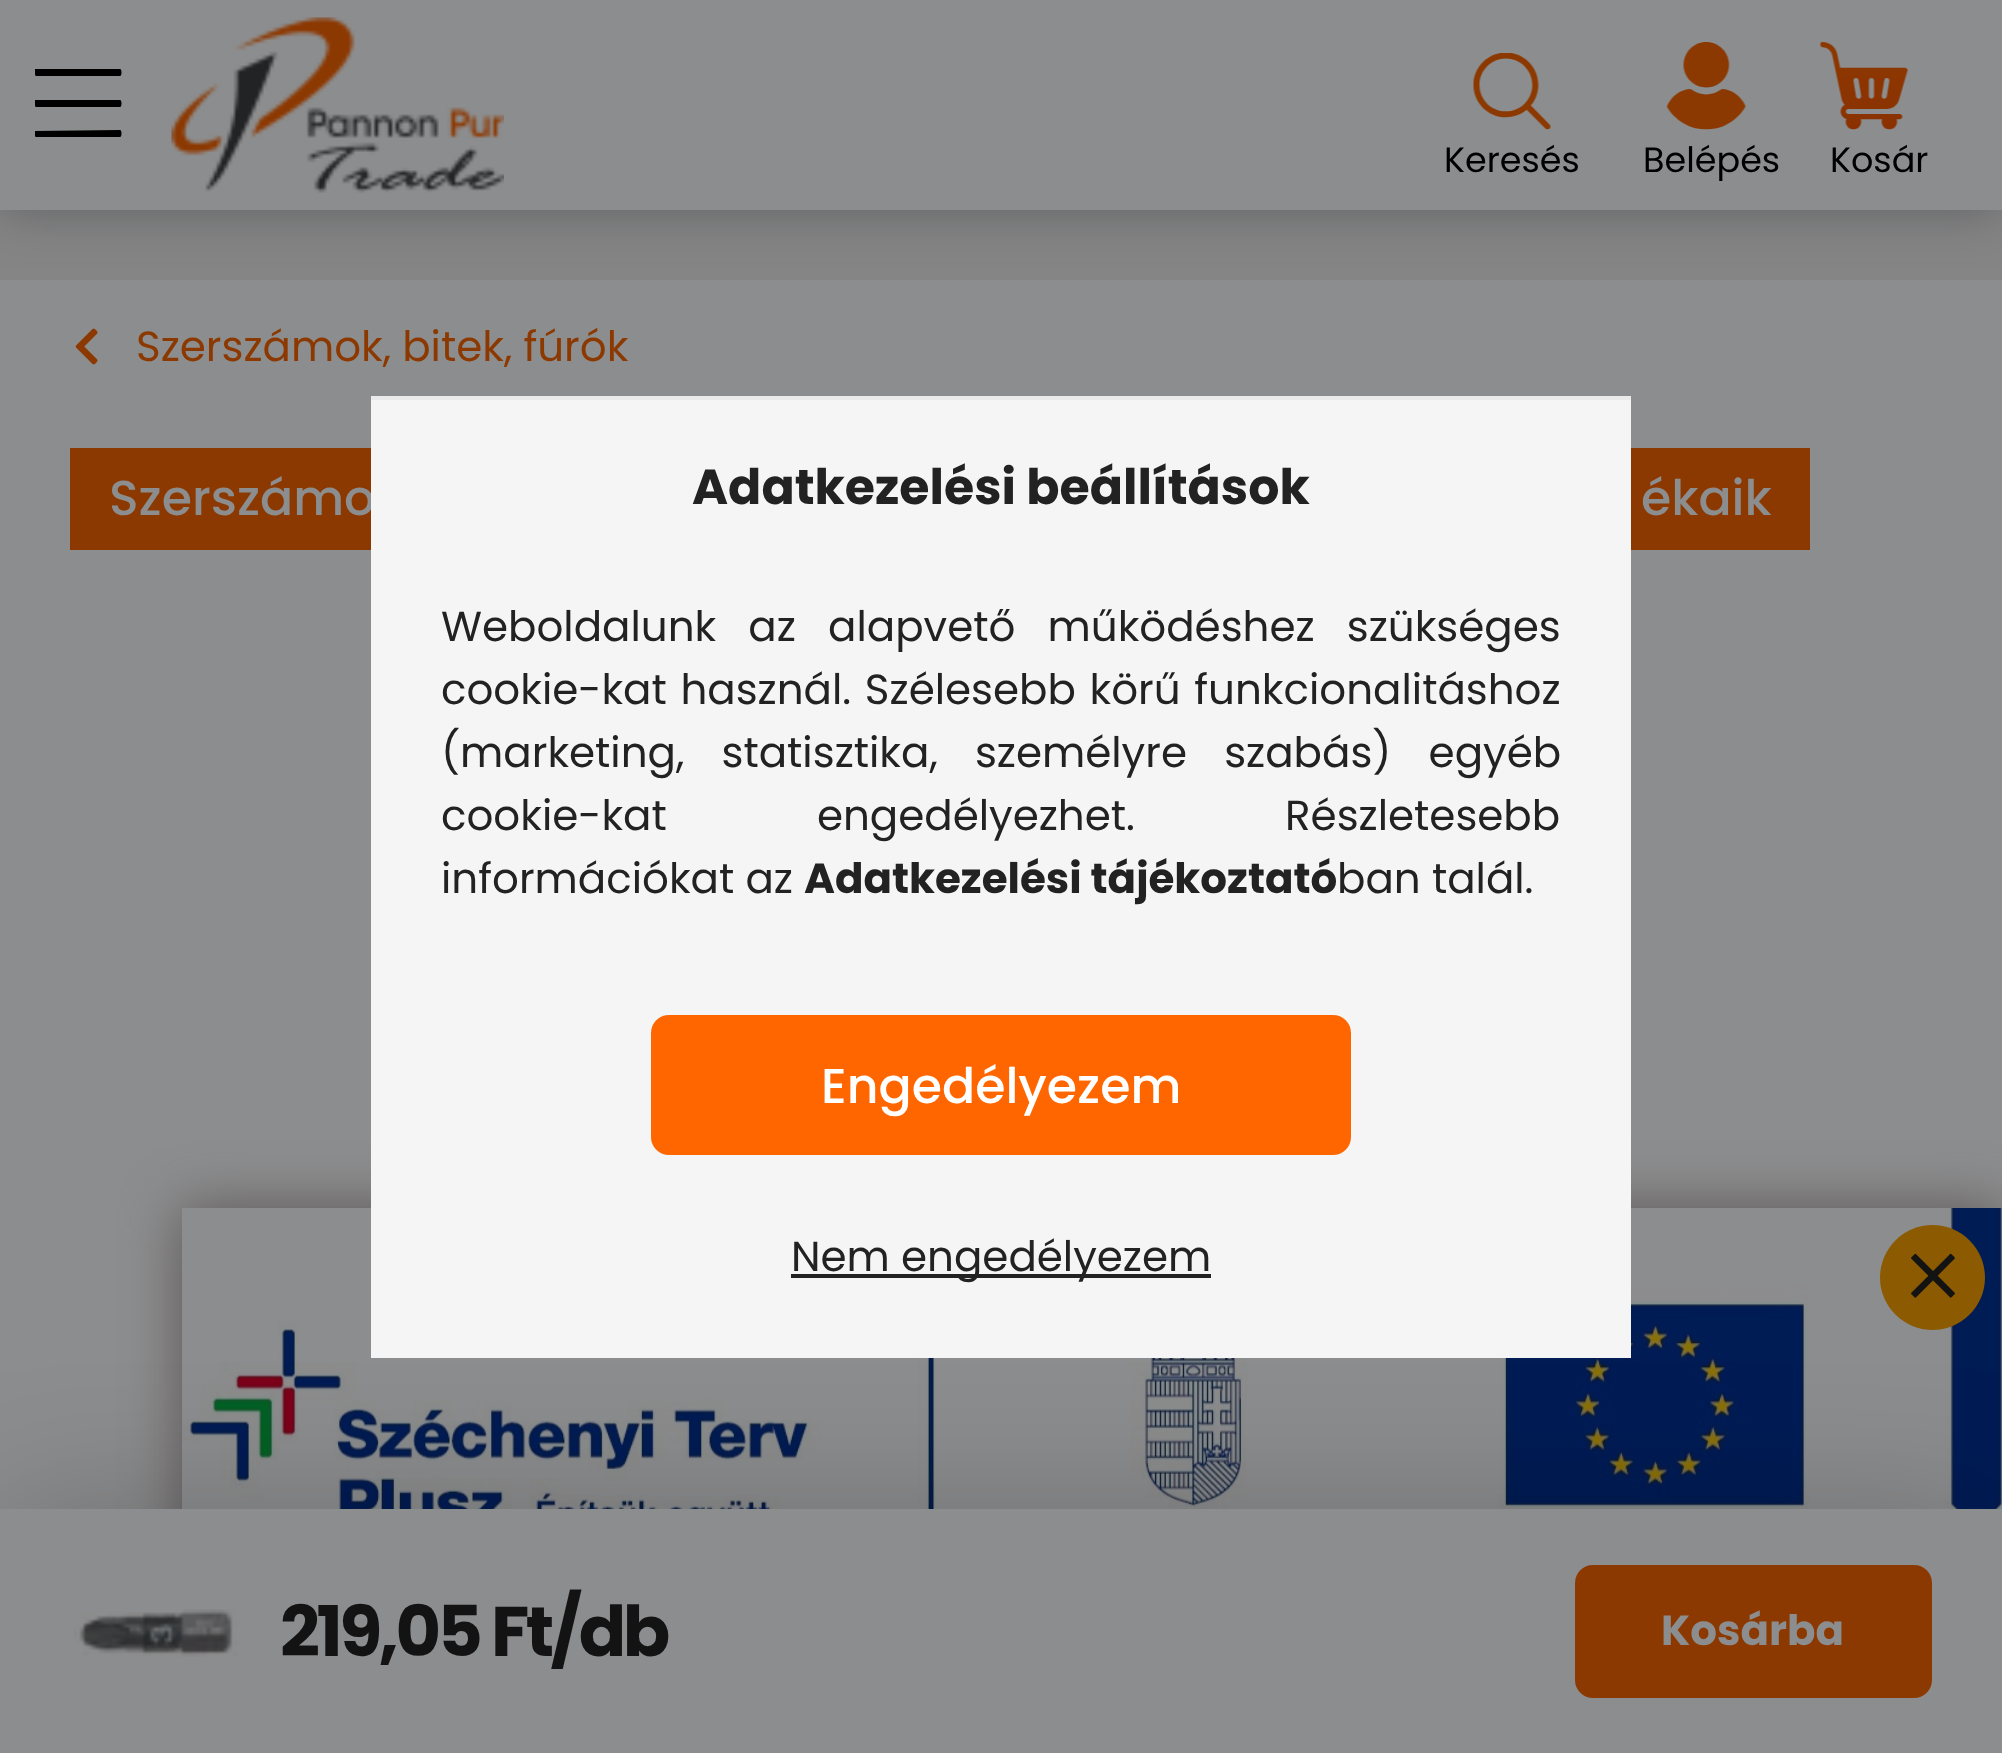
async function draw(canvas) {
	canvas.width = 2002;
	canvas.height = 1753;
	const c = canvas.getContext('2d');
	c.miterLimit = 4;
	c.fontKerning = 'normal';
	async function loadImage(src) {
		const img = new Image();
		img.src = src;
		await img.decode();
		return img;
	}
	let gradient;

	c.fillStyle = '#8c8d8e';
	c.fillRect(0, 0, 2002, 1753);
	c.fillStyle = '#858586';
	c.fillRect(0, 210, 2002, 70);
	c.fillStyle = '#46474899';
	c.filter = 'blur(26px)';
	c.beginPath();
	c.rect(0, 0, 2002, 210);
	c.fill();
	c.filter = 'none';
	c.fillStyle = '#8c8d8e';
	c.fillRect(0, 0, 2002, 210);
	c.fillStyle = '#000001';
	c.beginPath();
	c.moveTo(120, 76);
	c.lineTo(36, 76);
	c.bezierCurveTo(35, 76, 35, 74, 35, 73);
	c.lineTo(35, 69);
	c.lineTo(120, 69);
	c.bezierCurveTo(122, 69, 122, 76, 120, 76);
	c.closePath();
	c.moveTo(120, 107);
	c.lineTo(36, 107);
	c.bezierCurveTo(35, 107, 35, 105, 35, 104);
	c.lineTo(35, 100);
	c.lineTo(120, 100);
	c.bezierCurveTo(122, 100, 122, 107, 120, 107);
	c.closePath();
	c.moveTo(120, 137);
	c.lineTo(36, 137);
	c.bezierCurveTo(35, 137, 35, 136, 35, 135);
	c.lineTo(35, 131);
	c.lineTo(120, 130);
	c.bezierCurveTo(122, 130, 122, 137, 120, 137);
	c.closePath();
	c.fill();
	c.drawImage(await loadImage('img1.png'), 171, 17, 333, 176);
	c.drawImage(await loadImage('img2.png'), 1473, 53, 78, 77);
	c.font = '35px Poppins';
	c.fillText('Keresés', 1444, 172);
	c.drawImage(await loadImage('img3.png'), 1666, 42, 80, 88);
	c.fillText('Belépés', 1643, 172);
	c.drawImage(await loadImage('img4.png'), 1820, 42, 88, 88);
	c.fillText('Kosár', 1830, 172);
	c.drawImage(await loadImage('img5.png'), 75, 328, 23, 37);
	c.font = '42px Poppins';
	c.fillStyle = '#8c3901';
	c.fillText('Szerszámok, bitek, fúrók', 136, 361);
	c.fillRect(70, 448, 301, 102);
	c.font = '500 49px Poppins';
	c.fillStyle = '#8c8d8e';
	c.fillText('Szerszámo', 109, 515);
	c.fillStyle = '#8c3901';
	c.fillRect(1631, 448, 179, 102);
	c.fillStyle = '#8c8d8e';
	c.fillText('ékaik', 1641, 515);
	c.fillStyle = '#5c5657';
	c.filter = 'blur(28px)';
	c.beginPath();
	c.rect(182, 1208, 1820, 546);
	c.fill();
	c.filter = 'none';
	c.drawImage(await loadImage('img7.png'), 182, 1208, 1820, 301);
	c.fillStyle = '#8c5b01';
	c.beginPath();
	c.arc(1932.5, 1277.5, 52.5, 0, 2 * Math.PI);
	c.fill();
	c.fillStyle = '#00000133';
	c.filter = 'blur(70px)';
	c.beginPath();
	c.rect(0, 1509, 2002, 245);
	c.fill();
	c.filter = 'none';
	c.fillStyle = '#8c8d8e';
	c.fillRect(0, 1509, 2002, 244);
	c.drawImage(await loadImage('img6.png'), 74, 1609, 164, 48);
	c.letterSpacing = '-3.5px';
	c.font = 'bold 70px Poppins';
	c.fillStyle = '#131314';
	c.fillText('219,05 Ft/db', 280, 1656);
	gradient = c.createLinearGradient(861, 1631, 1932, 1631);
	gradient.addColorStop(0, '#86561c');
	gradient.addColorStop(0.33, '#86561c');
	gradient.addColorStop(0.67, '#8c3901');
	gradient.addColorStop(1, '#8c3901');
	c.fillStyle = gradient;
	c.beginPath();
	c.roundRect(1575, 1565, 357, 133, 18);
	c.fill();
	c.letterSpacing = '0px';
	c.font = 'bold 42px Poppins';
	c.fillStyle = '#8c8d8e';
	c.fillText('Kosárba', 1661, 1645);
	c.drawImage(await loadImage('img8.png'), 1911, 1253, 44, 45);
	c.fillStyle = '#f5f5f5';
	c.fillRect(371, 400, 1260, 958);
	c.fillStyle = '#eaeaea';
	c.fillRect(371, 396, 1260, 4);
	c.font = 'bold 49px Poppins';
	c.fillStyle = '#222';
	c.fillText('Adatkezelési beállítások', 692, 504);
	c.wordSpacing = '21px';
	c.font = '42px Poppins';
	c.fillText('Weboldalunk az alapvető működéshez szükséges', 441, 641);
	c.wordSpacing = '2.5px';
	c.fillText('cookie-kat használ. Szélesebb körű funkcionalitáshoz', 441, 704);
	c.wordSpacing = '26px';
	c.fillText('(marketing, statisztika, személyre szabás) egyéb', 441, 767);
	c.wordSpacing = '139px';
	c.fillText('cookie-kat engedélyezhet. Részletesebb', 441, 830);
	c.wordSpacing = '0px';
	c.fillText('információkat az', 441, 893);
	c.font = 'bold 42px Poppins';
	c.fillText('Adatkezelési tájékoztató', 804, 893);
	c.font = '42px Poppins';
	c.fillText('ban talál.', 1337, 893);
	gradient = c.createLinearGradient(-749, 1085, 1351, 1085);
	gradient.addColorStop(0, '#f49c31');
	gradient.addColorStop(0.33, '#f49c31');
	gradient.addColorStop(0.67, '#f60');
	gradient.addColorStop(1, '#f60');
	c.fillStyle = gradient;
	c.beginPath();
	c.roundRect(651, 1015, 700, 140, 18);
	c.fill();
	c.font = '500 49px Poppins';
	c.fillStyle = '#fff';
	c.fillText('Engedélyezem', 821, 1103);
	c.fillStyle = '#222';
	c.fillRect(791, 1274, 420, 4);
	c.font = '42px Poppins';
	c.fillText('Nem engedélyezem', 791, 1271);
}

draw(document.querySelector('canvas'));
